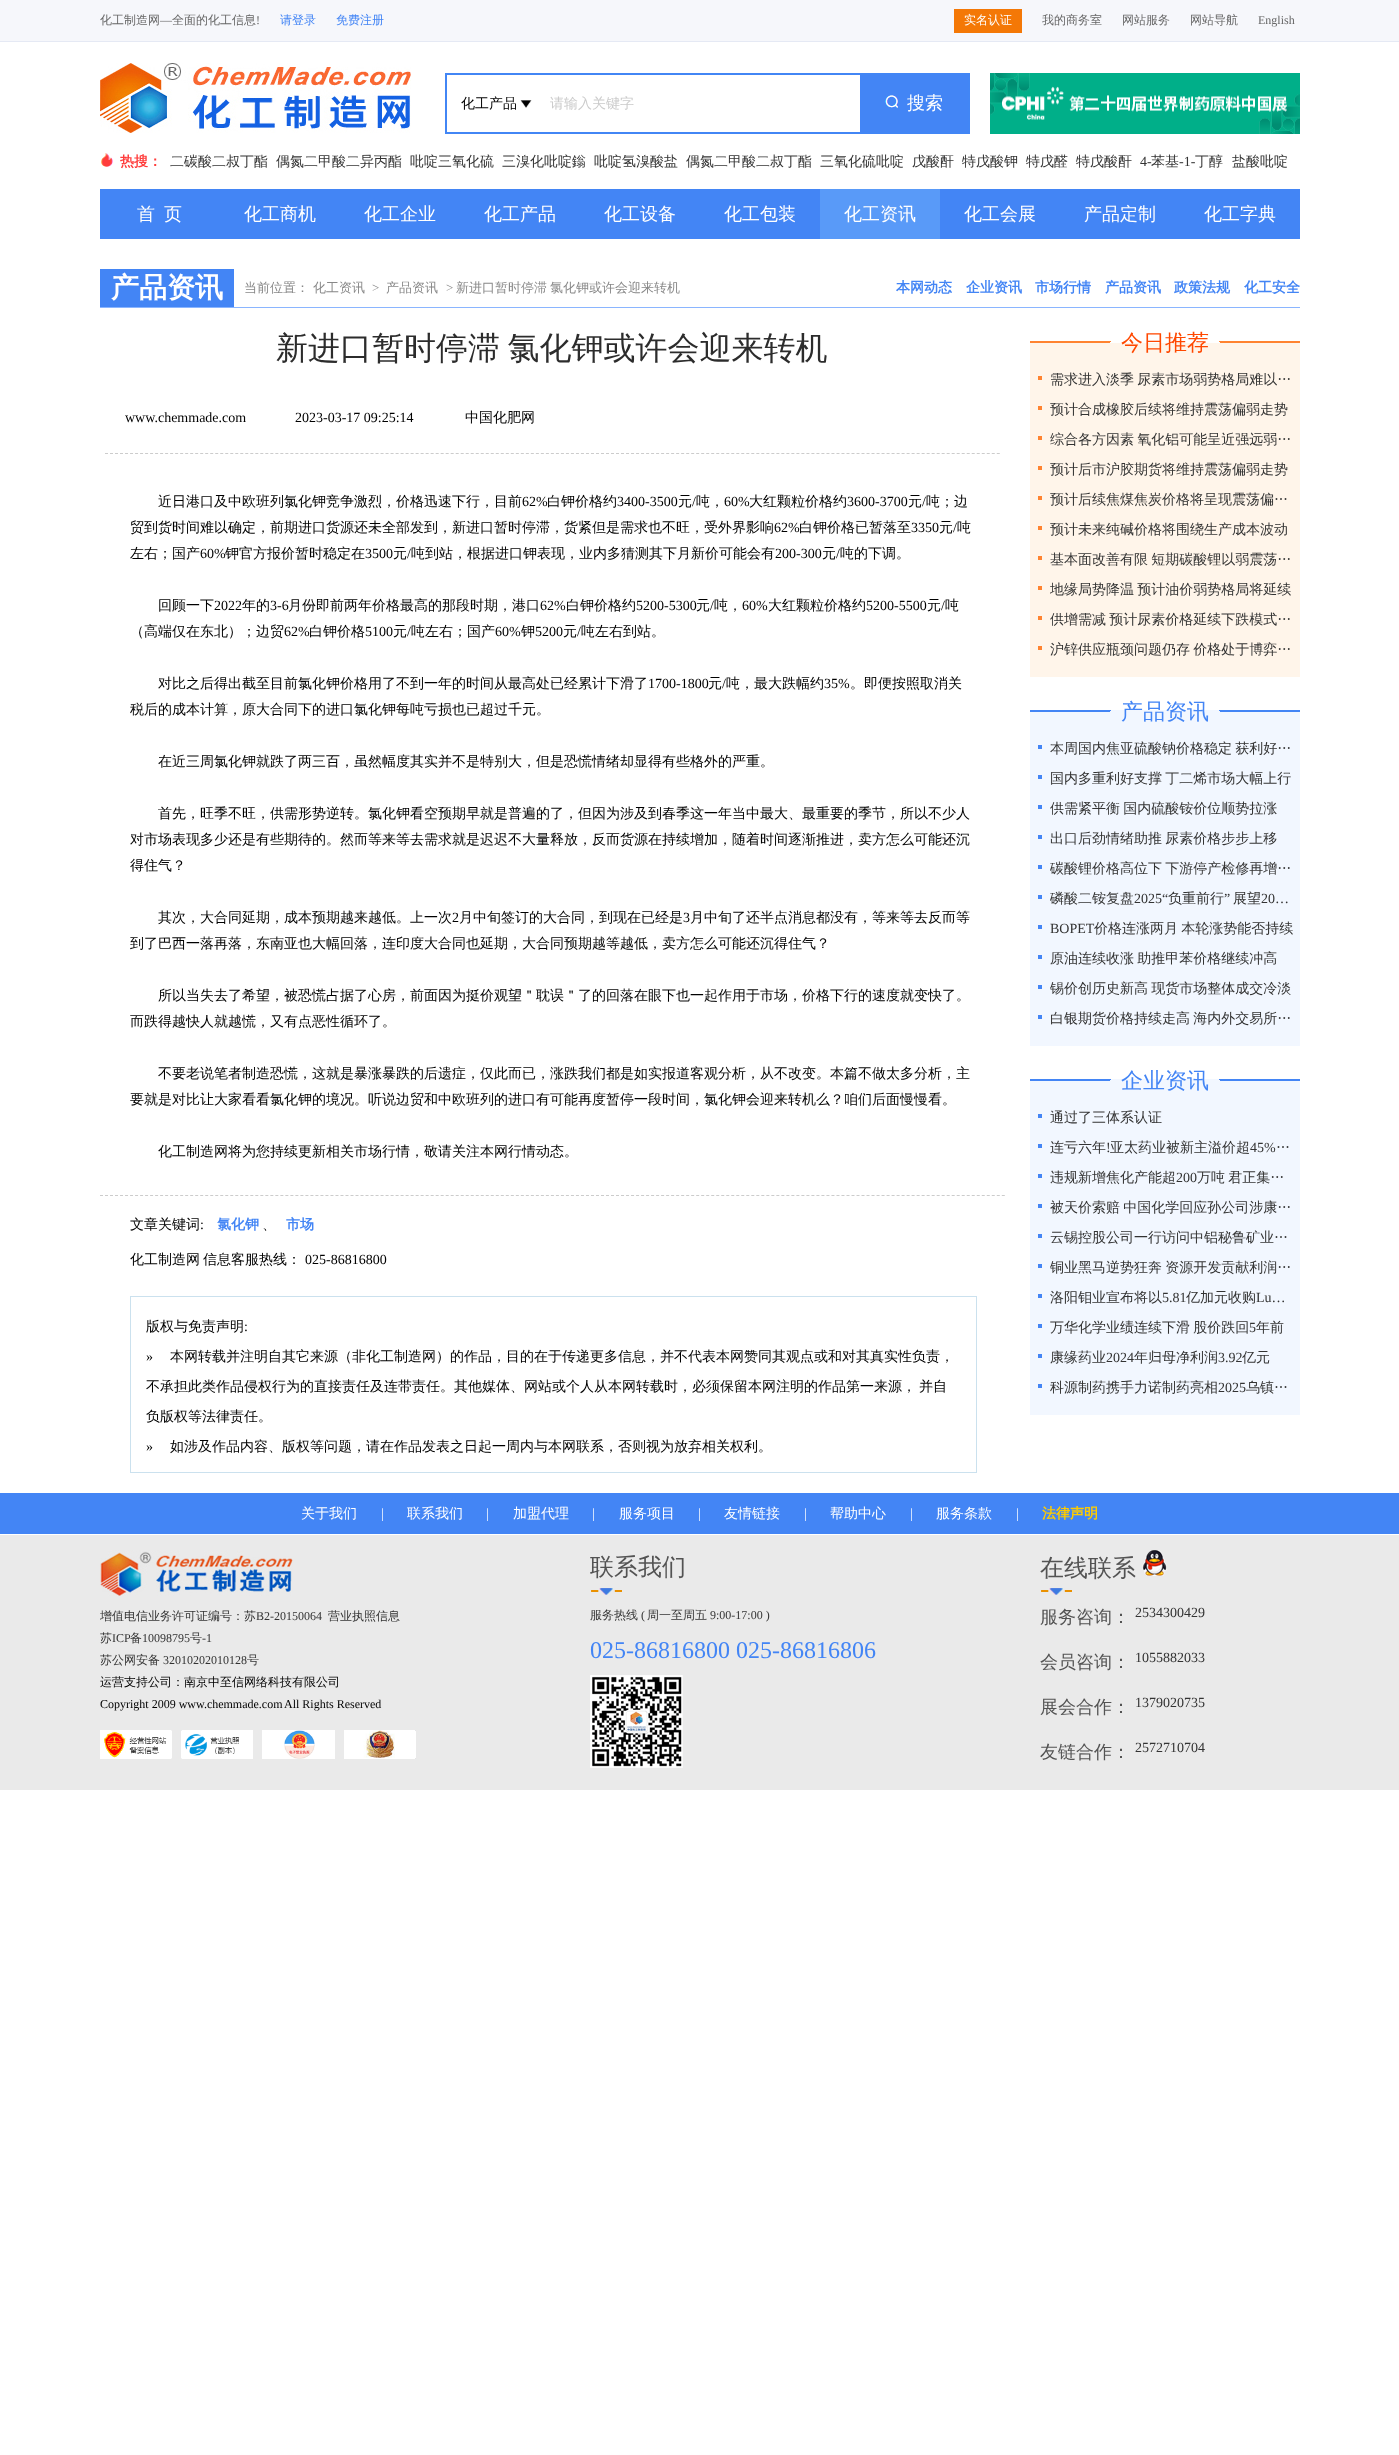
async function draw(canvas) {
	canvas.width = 1399;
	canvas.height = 2455;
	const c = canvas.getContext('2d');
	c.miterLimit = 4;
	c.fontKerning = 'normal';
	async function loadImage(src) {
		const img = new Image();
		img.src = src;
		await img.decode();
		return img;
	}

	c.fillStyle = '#fff';
	c.fillRect(0, 0, 1399, 2455);
	c.fillStyle = '#f6f7fb';
	c.fillRect(0, 0, 1399, 41);
	c.fillStyle = '#e5e9f4';
	c.fillRect(0, 41, 1399, 1);
	c.font = '500 12px WenQuanYi Zen Hei';
	c.fillStyle = '#666';
	c.fillText('化工制造网', 100, 24);
	c.font = '12px Liberation Serif';
	c.fillText('—', 160, 24);
	c.font = '500 12px WenQuanYi Zen Hei';
	c.fillText('全面的化工信息', 172, 24);
	c.font = '12px Liberation Serif';
	c.fillText('!', 256, 24);
	c.font = '500 12px WenQuanYi Zen Hei';
	c.fillStyle = '#4385f5';
	c.fillText('请登录', 280, 24);
	c.fillText('免费注册', 336, 24);
	c.fillStyle = '#f47806';
	c.fillRect(954, 9, 68, 24);
	c.fillStyle = '#fff';
	c.fillText('实名认证', 964, 24);
	c.fillStyle = '#666';
	for (const [text, x, y] of [
		['我的商务室', 1042, 24],
		['网站服务', 1122, 24],
		['网站导航', 1190, 24],
	]) {
		c.fillText(text, x, y);
	}
	c.font = '12px Liberation Serif';
	c.fillText('English', 1258, 24);
	c.drawImage(await loadImage('img1.png'), 100, 63, 311, 70);
	c.strokeStyle = '#4286f5';
	c.lineWidth = 2;
	c.strokeRect(446, 74, 523, 59);
	c.drawImage(await loadImage('img2.png'), 520, 100, 12, 8);
	c.font = '500 14px WenQuanYi Zen Hei';
	c.fillStyle = '#000';
	c.fillText('化工产品', 461, 108);
	c.fillStyle = '#cbcbcb';
	c.fillText('请输入关键字', 550, 108);
	c.drawImage(await loadImage('img3.png'), 860, 75, 108, 57);
	c.font = '500 18px WenQuanYi Zen Hei';
	c.fillStyle = '#fff';
	c.fillText('搜索', 907, 109);
	c.drawImage(await loadImage('img4.png'), 990, 73, 310, 61);
	c.drawImage(await loadImage('img5.png'), 101, 153, 12, 14);
	c.font = 'bold 14px WenQuanYi Zen Hei';
	c.fillStyle = '#ff3d3c';
	c.fillText('热搜：', 120, 166);
	c.font = '500 14px WenQuanYi Zen Hei';
	c.fillStyle = '#333';
	for (const [text, x, y] of [
		['二碳酸二叔丁酯', 170, 166],
		['偶氮二甲酸二异丙酯', 276, 166],
		['吡啶三氧化硫', 410, 166],
		['三溴化吡啶鎓', 502, 166],
		['吡啶氢溴酸盐', 594, 166],
		['偶氮二甲酸二叔丁酯', 686, 166],
		['三氧化硫吡啶', 820, 166],
		['戊酸酐', 912, 166],
		['特戊酸钾', 962, 166],
		['特戊醛', 1026, 166],
		['特戊酸酐', 1076, 166],
	]) {
		c.fillText(text, x, y);
	}
	c.font = '14px Liberation Serif';
	c.fillText('4-', 1140, 166);
	c.font = '500 14px WenQuanYi Zen Hei';
	c.fillText('苯基', 1151, 166);
	c.font = '14px Liberation Serif';
	c.fillText('-1-', 1179, 166);
	c.font = '500 14px WenQuanYi Zen Hei';
	c.fillText('丁醇', 1195, 166);
	c.fillText('盐酸吡啶', 1232, 166);
	c.fillStyle = '#4385f5';
	c.fillRect(100, 189, 1200, 50);
	c.font = '500 18px WenQuanYi Zen Hei';
	c.fillStyle = '#fff';
	for (const [text, x, y] of [
		['首', 137, 220],
		['页', 164, 220],
		['化工商机', 244, 220],
		['化工企业', 364, 220],
		['化工产品', 484, 220],
		['化工设备', 604, 220],
		['化工包装', 724, 220],
	]) {
		c.fillText(text, x, y);
	}
	c.fillStyle = '#599af8';
	c.fillRect(820, 189, 120, 50);
	c.fillStyle = '#fff';
	for (const [text, x, y] of [
		['化工资讯', 844, 220],
		['化工会展', 964, 220],
		['产品定制', 1084, 220],
		['化工字典', 1204, 220],
	]) {
		c.fillText(text, x, y);
	}
	c.fillStyle = '#8ab5ff';
	c.fillRect(100, 307, 1200, 1);
	c.fillStyle = '#4385f5';
	c.fillRect(100, 269, 134, 38);
	c.font = 'bold 28px WenQuanYi Zen Hei';
	c.fillStyle = '#fff';
	c.fillText('产品资讯', 111, 297);
	c.font = '500 13px WenQuanYi Zen Hei';
	c.fillStyle = '#888';
	c.fillText('当前位置： 化工资讯', 244, 292);
	c.font = '13px Liberation Serif';
	c.fillText('>', 372, 292);
	c.font = '500 13px WenQuanYi Zen Hei';
	c.fillText('产品资讯', 386, 292);
	c.font = '13px Liberation Serif';
	c.fillText('>', 446, 292);
	c.wordSpacing = '-1px';
	c.font = '500 13px WenQuanYi Zen Hei';
	c.fillText('新进口暂时停滞 氯化钾或许会迎来转机', 456, 292);
	c.wordSpacing = '0px';
	c.font = 'bold 14px WenQuanYi Zen Hei';
	c.fillStyle = '#4385f5';
	for (const [text, x, y] of [
		['本网动态', 896, 292],
		['企业资讯', 966, 292],
		['市场行情', 1035, 292],
		['产品资讯', 1105, 292],
		['政策法规', 1174, 292],
		['化工安全', 1244, 292],
	]) {
		c.fillText(text, x, y);
	}
	c.wordSpacing = '-2px';
	c.font = '500 32px WenQuanYi Zen Hei';
	c.fillStyle = '#2c2c2c';
	c.fillText('新进口暂时停滞 氯化钾或许会迎来转机', 276, 359);
	c.beginPath();
	c.moveTo(105, 453.5);
	c.lineTo(1000, 453.5);
	c.strokeStyle = '#ccc';
	c.lineWidth = 1;
	c.setLineDash([3, 2.01]);
	c.stroke();
	c.wordSpacing = '0px';
	c.font = '14px Liberation Serif';
	c.fillStyle = '#000';
	c.fillText('www.chemmade.com', 125, 422);
	c.fillText('2023-03-17 09:25:14', 295, 422);
	c.font = '500 14px WenQuanYi Zen Hei';
	c.fillText('中国化肥网', 465, 422);
	c.beginPath();
	c.moveTo(100, 1195.5);
	c.lineTo(1005, 1195.5);
	c.stroke();
	c.fillText('近日港口及中欧班列氯化钾竞争激烈，价格迅速下行，目前', 158, 506);
	c.font = '14px Liberation Serif';
	c.fillText('62%', 522, 506);
	c.font = '500 14px WenQuanYi Zen Hei';
	c.fillText('白钾价格约', 547, 506);
	c.font = '14px Liberation Serif';
	c.fillText('3400-3500', 617, 506);
	c.font = '500 14px WenQuanYi Zen Hei';
	c.fillText('元', 678, 506);
	c.font = '14px Liberation Serif';
	c.fillText('/', 692, 506);
	c.font = '500 14px WenQuanYi Zen Hei';
	c.fillText('吨，', 696, 506);
	c.font = '14px Liberation Serif';
	c.fillText('60%', 724, 506);
	c.font = '500 14px WenQuanYi Zen Hei';
	c.fillText('大红颗粒价格约', 749, 506);
	c.font = '14px Liberation Serif';
	c.fillText('3600-3700', 847, 506);
	c.font = '500 14px WenQuanYi Zen Hei';
	c.fillText('元', 908, 506);
	c.font = '14px Liberation Serif';
	c.fillText('/', 922, 506);
	c.font = '500 14px WenQuanYi Zen Hei';
	c.fillText('吨；边', 926, 506);
	c.fillText('贸到货时间难以确定，前期进口货源还未全部发到，新进口暂时停滞，货紧但是需求也不旺，受外界影响', 130, 532);
	c.font = '14px Liberation Serif';
	c.fillText('62%', 774, 532);
	c.font = '500 14px WenQuanYi Zen Hei';
	c.fillText('白钾价格已暂落至', 799, 532);
	c.font = '14px Liberation Serif';
	c.fillText('3350', 911, 532);
	c.font = '500 14px WenQuanYi Zen Hei';
	c.fillText('元', 939, 532);
	c.font = '14px Liberation Serif';
	c.fillText('/', 953, 532);
	c.font = '500 14px WenQuanYi Zen Hei';
	c.fillText('吨', 957, 532);
	c.fillText('左右；国产', 130, 558);
	c.font = '14px Liberation Serif';
	c.fillText('60%', 200, 558);
	c.font = '500 14px WenQuanYi Zen Hei';
	c.fillText('钾官方报价暂时稳定在', 225, 558);
	c.font = '14px Liberation Serif';
	c.fillText('3500', 365, 558);
	c.font = '500 14px WenQuanYi Zen Hei';
	c.fillText('元', 393, 558);
	c.font = '14px Liberation Serif';
	c.fillText('/', 407, 558);
	c.font = '500 14px WenQuanYi Zen Hei';
	c.fillText('吨到站，根据进口钾表现，业内多猜测其下月新价可能会有', 411, 558);
	c.font = '14px Liberation Serif';
	c.fillText('200-300', 775, 558);
	c.font = '500 14px WenQuanYi Zen Hei';
	c.fillText('元', 822, 558);
	c.font = '14px Liberation Serif';
	c.fillText('/', 836, 558);
	c.font = '500 14px WenQuanYi Zen Hei';
	c.fillText('吨的下调。', 840, 558);
	c.fillText('回顾一下', 158, 610);
	c.font = '14px Liberation Serif';
	c.fillText('2022', 214, 610);
	c.font = '500 14px WenQuanYi Zen Hei';
	c.fillText('年的', 242, 610);
	c.font = '14px Liberation Serif';
	c.fillText('3-6', 270, 610);
	c.font = '500 14px WenQuanYi Zen Hei';
	c.fillText('月份即前两年价格最高的那段时期，港口', 288, 610);
	c.font = '14px Liberation Serif';
	c.fillText('62%', 540, 610);
	c.font = '500 14px WenQuanYi Zen Hei';
	c.fillText('白钾价格约', 566, 610);
	c.font = '14px Liberation Serif';
	c.fillText('5200-5300', 636, 610);
	c.font = '500 14px WenQuanYi Zen Hei';
	c.fillText('元', 696, 610);
	c.font = '14px Liberation Serif';
	c.fillText('/', 710, 610);
	c.font = '500 14px WenQuanYi Zen Hei';
	c.fillText('吨，', 714, 610);
	c.font = '14px Liberation Serif';
	c.fillText('60%', 742, 610);
	c.font = '500 14px WenQuanYi Zen Hei';
	c.fillText('大红颗粒价格约', 768, 610);
	c.font = '14px Liberation Serif';
	c.fillText('5200-5500', 866, 610);
	c.font = '500 14px WenQuanYi Zen Hei';
	c.fillText('元', 927, 610);
	c.font = '14px Liberation Serif';
	c.fillText('/', 941, 610);
	c.font = '500 14px WenQuanYi Zen Hei';
	c.fillText('吨', 945, 610);
	c.fillText('（高端仅在东北）；边贸', 130, 636);
	c.font = '14px Liberation Serif';
	c.fillText('62%', 284, 636);
	c.font = '500 14px WenQuanYi Zen Hei';
	c.fillText('白钾价格', 309, 636);
	c.font = '14px Liberation Serif';
	c.fillText('5100', 365, 636);
	c.font = '500 14px WenQuanYi Zen Hei';
	c.fillText('元', 393, 636);
	c.font = '14px Liberation Serif';
	c.fillText('/', 407, 636);
	c.font = '500 14px WenQuanYi Zen Hei';
	c.fillText('吨左右；国产', 411, 636);
	c.font = '14px Liberation Serif';
	c.fillText('60%', 495, 636);
	c.font = '500 14px WenQuanYi Zen Hei';
	c.fillText('钾', 521, 636);
	c.font = '14px Liberation Serif';
	c.fillText('5200', 535, 636);
	c.font = '500 14px WenQuanYi Zen Hei';
	c.fillText('元', 563, 636);
	c.font = '14px Liberation Serif';
	c.fillText('/', 577, 636);
	c.font = '500 14px WenQuanYi Zen Hei';
	c.fillText('吨左右到站。', 581, 636);
	c.fillText('对比之后得出截至目前氯化钾价格用了不到一年的时间从最高处已经累计下滑了', 158, 688);
	c.font = '14px Liberation Serif';
	c.fillText('1700-1800', 648, 688);
	c.font = '500 14px WenQuanYi Zen Hei';
	c.fillText('元', 708, 688);
	c.font = '14px Liberation Serif';
	c.fillText('/', 722, 688);
	c.font = '500 14px WenQuanYi Zen Hei';
	c.fillText('吨，最大跌幅约', 726, 688);
	c.font = '14px Liberation Serif';
	c.fillText('35%', 824, 688);
	c.font = '500 14px WenQuanYi Zen Hei';
	for (const [text, x, y] of [
		['。即便按照取消关', 850, 688],
		['税后的成本计算，原大合同下的进口氯化钾每吨亏损也已超过千元。', 130, 714],
		['在近三周氯化钾就跌了两三百，虽然幅度其实并不是特别大，但是恐慌情绪却显得有些格外的严重。', 158, 766],
		['首先，旺季不旺，供需形势逆转。氯化钾看空预期早就是普遍的了，但因为涉及到春季这一年当中最大、最重要的季节，所以不少人', 158, 818],
		['对市场表现多少还是有些期待的。然而等来等去需求就是迟迟不大量释放，反而货源在持续增加，随着时间逐渐推进，卖方怎么可能还沉', 130, 844],
		['得住气？', 130, 870],
		['其次，大合同延期，成本预期越来越低。上一次', 158, 922],
	]) {
		c.fillText(text, x, y);
	}
	c.font = '14px Liberation Serif';
	c.fillText('2', 452, 922);
	c.font = '500 14px WenQuanYi Zen Hei';
	c.fillText('月中旬签订的大合同，到现在已经是', 459, 922);
	c.font = '14px Liberation Serif';
	c.fillText('3', 683, 922);
	c.font = '500 14px WenQuanYi Zen Hei';
	for (const [text, x, y] of [
		['月中旬了还半点消息都没有，等来等去反而等', 690, 922],
		['到了巴西一落再落，东南亚也大幅回落，连印度大合同也延期，大合同预期越等越低，卖方怎么可能还沉得住气？', 130, 948],
		['所以当失去了希望，被恐慌占据了心房，前面因为挺价观望＂耽误＂了的回落在眼下也一起作用于市场，价格下行的速度就变快了。', 158, 1000],
		['而跌得越快人就越慌，又有点恶性循环了。', 130, 1026],
		['不要老说笔者制造恐慌，这就是暴涨暴跌的后遗症，仅此而已，涨跌我们都是如实报道客观分析，从不改变。本篇不做太多分析，主', 158, 1078],
		['要就是对比让大家看看氯化钾的境况。听说边贸和中欧班列的进口有可能再度暂停一段时间，氯化钾会迎来转机么？咱们后面慢慢看。', 130, 1104],
		['化工制造网将为您持续更新相关市场行情，敬请关注本网行情动态。', 158, 1156],
		['文章关键词', 130, 1229],
	]) {
		c.fillText(text, x, y);
	}
	c.font = '14px Liberation Serif';
	c.fillText(':', 200, 1229);
	c.font = 'bold 14px WenQuanYi Zen Hei';
	c.fillStyle = '#4385f5';
	c.fillText('氯化钾', 217, 1229);
	c.font = '500 14px WenQuanYi Zen Hei';
	c.fillStyle = '#000';
	c.fillText('、', 262, 1229);
	c.font = 'bold 14px WenQuanYi Zen Hei';
	c.fillStyle = '#4385f5';
	c.fillText('市场', 286, 1229);
	c.font = '500 14px WenQuanYi Zen Hei';
	c.fillStyle = '#000';
	c.fillText('化工制造网', 130, 1264);
	c.fillText('信息客服热线：', 203, 1264);
	c.font = '14px Liberation Serif';
	c.fillText('025-86816800', 305, 1264);
	c.strokeStyle = '#cbe1ee';
	c.setLineDash([]);
	c.strokeRect(130.5, 1296.5, 846, 176);
	c.font = '500 14px WenQuanYi Zen Hei';
	c.fillText('版权与免责声明', 146, 1331);
	c.font = '14px Liberation Serif';
	c.fillText(':', 244, 1331);
	c.fillText('»', 146, 1361);
	c.font = '500 14px WenQuanYi Zen Hei';
	for (const [text, x, y] of [
		['本网转载并注明自其它来源（非化工制造网）的作品，目的在于传递更多信息，并不代表本网赞同其观点或和对其真实性负责，', 170, 1361],
		['不承担此类作品侵权行为的直接责任及连带责任。其他媒体、网站或个人从本网转载时，必须保留本网注明的作品第一来源，', 146, 1391],
		['并自', 919, 1391],
		['负版权等法律责任。', 146, 1421],
	]) {
		c.fillText(text, x, y);
	}
	c.font = '14px Liberation Serif';
	c.fillText('»', 146, 1451);
	c.font = '500 14px WenQuanYi Zen Hei';
	c.fillText('如涉及作品内容、版权等问题，请在作品发表之日起一周内与本网联系，否则视为放弃相关权利。', 170, 1451);
	c.drawImage(await loadImage('img6.png'), 1030, 341, 270, 16);
	c.font = '500 22px WenQuanYi Zen Hei';
	c.fillStyle = '#ff4800';
	c.fillText('今日推荐', 1121, 350);
	c.fillStyle = '#fff5ea';
	c.fillRect(1030, 357, 270, 320);
	c.fillStyle = '#ff8330';
	c.fillRect(1038, 376, 4, 4);
	c.wordSpacing = '-1px';
	c.font = '500 14px WenQuanYi Zen Hei';
	c.fillStyle = '#333';
	c.fillText('需求进入淡季 尿素市场弱势格局难以…', 1050, 384);
	c.fillStyle = '#ff8330';
	c.fillRect(1038, 406, 4, 4);
	c.wordSpacing = '0px';
	c.fillStyle = '#333';
	c.fillText('预计合成橡胶后续将维持震荡偏弱走势', 1050, 414);
	c.fillStyle = '#ff8330';
	c.fillRect(1038, 436, 4, 4);
	c.wordSpacing = '-1px';
	c.fillStyle = '#333';
	c.fillText('综合各方因素 氧化铝可能呈近强远弱…', 1050, 444);
	c.fillStyle = '#ff8330';
	c.fillRect(1038, 466, 4, 4);
	c.wordSpacing = '0px';
	c.fillStyle = '#333';
	c.fillText('预计后市沪胶期货将维持震荡偏弱走势', 1050, 474);
	c.fillStyle = '#ff8330';
	c.fillRect(1038, 496, 4, 4);
	c.fillStyle = '#333';
	c.fillText('预计后续焦煤焦炭价格将呈现震荡偏…', 1050, 504);
	c.fillStyle = '#ff8330';
	c.fillRect(1038, 526, 4, 4);
	c.fillStyle = '#333';
	c.fillText('预计未来纯碱价格将围绕生产成本波动', 1050, 534);
	c.fillStyle = '#ff8330';
	c.fillRect(1038, 556, 4, 4);
	c.wordSpacing = '-1px';
	c.fillStyle = '#333';
	c.fillText('基本面改善有限 短期碳酸锂以弱震荡…', 1050, 564);
	c.fillStyle = '#ff8330';
	c.fillRect(1038, 586, 4, 4);
	c.save();
	c.beginPath();
	c.rect(1050, 575, 245, 30);
	c.clip();
	c.fillStyle = '#333';
	c.fillText('地缘局势降温 预计油价弱势格局将延续', 1050, 594);
	c.restore();
	c.fillRect(1038, 616, 4, 4);
	c.fillStyle = '#333';
	c.fillText('供增需减 预计尿素价格延续下跌模式…', 1050, 624);
	c.fillStyle = '#ff8330';
	c.fillRect(1038, 646, 4, 4);
	c.fillStyle = '#333';
	c.fillText('沪锌供应瓶颈问题仍存 价格处于博弈…', 1050, 654);
	c.drawImage(await loadImage('img7.png'), 1030, 710, 270, 16);
	c.wordSpacing = '0px';
	c.font = '500 22px WenQuanYi Zen Hei';
	c.fillStyle = '#4385f5';
	c.fillText('产品资讯', 1121, 719);
	c.fillStyle = '#f2f7ff';
	c.fillRect(1030, 726, 270, 320);
	c.fillStyle = '#4385f5';
	c.fillRect(1038, 745, 4, 4);
	c.wordSpacing = '-1px';
	c.font = '500 14px WenQuanYi Zen Hei';
	c.fillStyle = '#333';
	c.fillText('本周国内焦亚硫酸钠价格稳定 获利好…', 1050, 753);
	c.fillStyle = '#4385f5';
	c.fillRect(1038, 775, 4, 4);
	c.fillStyle = '#333';
	c.fillText('国内多重利好支撑 丁二烯市场大幅上行', 1050, 783);
	c.fillStyle = '#4385f5';
	c.fillRect(1038, 805, 4, 4);
	c.fillStyle = '#333';
	c.fillText('供需紧平衡 国内硫酸铵价位顺势拉涨', 1050, 813);
	c.fillStyle = '#4385f5';
	c.fillRect(1038, 835, 4, 4);
	c.fillStyle = '#333';
	c.fillText('出口后劲情绪助推 尿素价格步步上移', 1050, 843);
	c.fillStyle = '#4385f5';
	c.fillRect(1038, 865, 4, 4);
	c.fillStyle = '#333';
	c.fillText('碳酸锂价格高位下 下游停产检修再增…', 1050, 873);
	c.fillStyle = '#4385f5';
	c.fillRect(1038, 895, 4, 4);
	c.wordSpacing = '0px';
	c.fillStyle = '#333';
	c.fillText('磷酸二铵复盘', 1050, 903);
	c.font = '14px Liberation Serif';
	c.fillText('2025“', 1134, 903);
	c.font = '500 14px WenQuanYi Zen Hei';
	c.fillText('负重前行', 1168, 903);
	c.font = '14px Liberation Serif';
	c.fillText('”', 1224, 903);
	c.font = '500 14px WenQuanYi Zen Hei';
	c.fillText('展望', 1233, 903);
	c.font = '14px Liberation Serif';
	c.fillText('20…', 1261, 903);
	c.fillStyle = '#4385f5';
	c.fillRect(1038, 925, 4, 4);
	c.fillStyle = '#333';
	c.fillText('BOPET', 1050, 933);
	c.wordSpacing = '-1px';
	c.font = '500 14px WenQuanYi Zen Hei';
	c.fillText('价格连涨两月 本轮涨势能否持续', 1094, 933);
	c.fillStyle = '#4385f5';
	c.fillRect(1038, 955, 4, 4);
	c.fillStyle = '#333';
	c.fillText('原油连续收涨 助推甲苯价格继续冲高', 1050, 963);
	c.fillStyle = '#4385f5';
	c.fillRect(1038, 985, 4, 4);
	c.fillStyle = '#333';
	c.fillText('锡价创历史新高 现货市场整体成交冷淡', 1050, 993);
	c.fillStyle = '#4385f5';
	c.fillRect(1038, 1015, 4, 4);
	c.fillStyle = '#333';
	c.fillText('白银期货价格持续走高 海内外交易所…', 1050, 1023);
	c.drawImage(await loadImage('img7.png'), 1030, 1079, 270, 16);
	c.wordSpacing = '0px';
	c.font = '500 22px WenQuanYi Zen Hei';
	c.fillStyle = '#4385f5';
	c.fillText('企业资讯', 1121, 1088);
	c.fillStyle = '#f2f7ff';
	c.fillRect(1030, 1095, 270, 320);
	c.fillStyle = '#4385f5';
	c.fillRect(1038, 1114, 4, 4);
	c.font = '500 14px WenQuanYi Zen Hei';
	c.fillStyle = '#333';
	c.fillText('通过了三体系认证', 1050, 1122);
	c.fillStyle = '#4385f5';
	c.fillRect(1038, 1144, 4, 4);
	c.fillStyle = '#333';
	c.fillText('连亏六年', 1050, 1152);
	c.font = '14px Liberation Serif';
	c.fillText('!', 1106, 1152);
	c.font = '500 14px WenQuanYi Zen Hei';
	c.fillText('亚太药业被新主溢价超', 1110, 1152);
	c.font = '14px Liberation Serif';
	c.fillText('45%', 1250, 1152);
	c.font = '500 14px WenQuanYi Zen Hei';
	c.fillText('…', 1276, 1152);
	c.fillStyle = '#4385f5';
	c.fillRect(1038, 1174, 4, 4);
	c.fillStyle = '#333';
	c.fillText('违规新增焦化产能超', 1050, 1182);
	c.font = '14px Liberation Serif';
	c.fillText('200', 1176, 1182);
	c.wordSpacing = '-1px';
	c.font = '500 14px WenQuanYi Zen Hei';
	c.fillText('万吨 君正集…', 1197, 1182);
	c.fillStyle = '#4385f5';
	c.fillRect(1038, 1204, 4, 4);
	c.fillStyle = '#333';
	c.fillText('被天价索赔 中国化学回应孙公司涉康…', 1050, 1212);
	c.fillStyle = '#4385f5';
	c.fillRect(1038, 1234, 4, 4);
	c.wordSpacing = '0px';
	c.fillStyle = '#333';
	c.fillText('云锡控股公司一行访问中铝秘鲁矿业…', 1050, 1242);
	c.fillStyle = '#4385f5';
	c.fillRect(1038, 1264, 4, 4);
	c.wordSpacing = '-1px';
	c.fillStyle = '#333';
	c.fillText('铜业黑马逆势狂奔 资源开发贡献利润…', 1050, 1272);
	c.fillStyle = '#4385f5';
	c.fillRect(1038, 1294, 4, 4);
	c.wordSpacing = '0px';
	c.fillStyle = '#333';
	c.fillText('洛阳钼业宣布将以', 1050, 1302);
	c.font = '14px Liberation Serif';
	c.fillText('5.81', 1162, 1302);
	c.font = '500 14px WenQuanYi Zen Hei';
	c.fillText('亿加元收购', 1186, 1302);
	c.font = '14px Liberation Serif';
	c.fillText('Lu…', 1256, 1302);
	c.fillStyle = '#4385f5';
	c.fillRect(1038, 1324, 4, 4);
	c.wordSpacing = '-1px';
	c.font = '500 14px WenQuanYi Zen Hei';
	c.fillStyle = '#333';
	c.fillText('万华化学业绩连续下滑 股价跌回', 1050, 1332);
	c.wordSpacing = '0px';
	c.font = '14px Liberation Serif';
	c.fillText('5', 1249, 1332);
	c.font = '500 14px WenQuanYi Zen Hei';
	c.fillText('年前', 1256, 1332);
	c.fillStyle = '#4385f5';
	c.fillRect(1038, 1354, 4, 4);
	c.fillStyle = '#333';
	c.fillText('康缘药业', 1050, 1362);
	c.font = '14px Liberation Serif';
	c.fillText('2024', 1106, 1362);
	c.font = '500 14px WenQuanYi Zen Hei';
	c.fillText('年归母净利润', 1134, 1362);
	c.font = '14px Liberation Serif';
	c.fillText('3.92', 1218, 1362);
	c.font = '500 14px WenQuanYi Zen Hei';
	c.fillText('亿元', 1242, 1362);
	c.fillStyle = '#4385f5';
	c.fillRect(1038, 1384, 4, 4);
	c.fillStyle = '#333';
	c.fillText('科源制药携手力诺制药亮相', 1050, 1392);
	c.font = '14px Liberation Serif';
	c.fillText('2025', 1218, 1392);
	c.font = '500 14px WenQuanYi Zen Hei';
	c.fillText('乌镇…', 1246, 1392);
	c.fillStyle = '#4385f5';
	c.fillRect(0, 1493, 1399, 41);
	c.fillStyle = '#fff';
	c.fillText('关于我们', 301, 1518);
	c.font = '14px Liberation Serif';
	c.fillText('|', 381, 1518);
	c.font = '500 14px WenQuanYi Zen Hei';
	c.fillText('联系我们', 407, 1518);
	c.font = '14px Liberation Serif';
	c.fillText('|', 486, 1518);
	c.font = '500 14px WenQuanYi Zen Hei';
	c.fillText('加盟代理', 513, 1518);
	c.font = '14px Liberation Serif';
	c.fillText('|', 592, 1518);
	c.font = '500 14px WenQuanYi Zen Hei';
	c.fillText('服务项目', 619, 1518);
	c.font = '14px Liberation Serif';
	c.fillText('|', 698, 1518);
	c.font = '500 14px WenQuanYi Zen Hei';
	c.fillText('友情链接', 724, 1518);
	c.font = '14px Liberation Serif';
	c.fillText('|', 804, 1518);
	c.font = '500 14px WenQuanYi Zen Hei';
	c.fillText('帮助中心', 830, 1518);
	c.font = '14px Liberation Serif';
	c.fillText('|', 910, 1518);
	c.font = '500 14px WenQuanYi Zen Hei';
	c.fillText('服务条款', 936, 1518);
	c.font = '14px Liberation Serif';
	c.fillText('|', 1016, 1518);
	c.font = 'bold 14px WenQuanYi Zen Hei';
	c.fillStyle = '#fc0';
	c.fillText('法律声明', 1042, 1518);
	c.fillStyle = '#eaeaea';
	c.fillRect(0, 1535, 1399, 255);
	c.drawImage(await loadImage('img8.png'), 100, 1550, 193, 46);
	c.font = '500 12px WenQuanYi Zen Hei';
	c.fillStyle = '#333';
	c.fillText('增值电信业务许可证编号：苏', 100, 1620);
	c.font = '12px Liberation Serif';
	c.fillText('B2-20150064', 256, 1620);
	c.font = '500 12px WenQuanYi Zen Hei';
	c.fillText('营业执照信息', 328, 1620);
	c.fillText('苏', 100, 1642);
	c.font = '12px Liberation Serif';
	c.fillText('ICP', 112, 1642);
	c.font = '500 12px WenQuanYi Zen Hei';
	c.fillText('备', 130, 1642);
	c.font = '12px Liberation Serif';
	c.fillText('10098795', 142, 1642);
	c.font = '500 12px WenQuanYi Zen Hei';
	c.fillText('号', 190, 1642);
	c.font = '12px Liberation Serif';
	c.fillText('-1', 202, 1642);
	c.font = '500 12px WenQuanYi Zen Hei';
	c.fillText('苏公网安备', 100, 1664);
	c.font = '12px Liberation Serif';
	c.fillText('32010202010128', 163, 1664);
	c.font = '500 12px WenQuanYi Zen Hei';
	c.fillText('号', 247, 1664);
	c.fillStyle = '#000';
	c.fillText('运营支持公司：南京中至信网络科技有限公司', 100, 1686);
	c.font = '12px Liberation Serif';
	c.fillText('Copyright 2009 www.chemmade.com', 100, 1708);
	c.fillText('All Rights Reserved', 284, 1708);
	c.drawImage(await loadImage('img9.png'), 100, 1730, 72, 29);
	c.drawImage(await loadImage('img10.png'), 181, 1730, 72, 29);
	c.drawImage(await loadImage('img11.png'), 262, 1730, 73, 29);
	c.drawImage(await loadImage('img12.png'), 344, 1730, 72, 29);
	c.drawImage(await loadImage('img13.png'), 591, 1588, 31, 7);
	c.font = '500 24px WenQuanYi Zen Hei';
	c.fillStyle = '#535353';
	c.fillText('联系我们', 590, 1575);
	c.font = '500 12px WenQuanYi Zen Hei';
	c.fillStyle = '#333';
	c.fillText('服务热线', 590, 1619);
	c.font = '12px Liberation Serif';
	c.fillText('(', 641, 1619);
	c.font = '500 12px WenQuanYi Zen Hei';
	c.fillText('周一至周五', 647, 1619);
	c.font = '12px Liberation Serif';
	c.fillText('9:00-17:00 )', 710, 1619);
	c.font = '24px Liberation Serif';
	c.fillStyle = '#4385f5';
	c.fillText('025-86816800 025-86816806', 590, 1658);
	c.drawImage(await loadImage('img14.png'), 590, 1675, 93, 93);
	c.drawImage(await loadImage('img13.png'), 1041, 1588, 31, 7);
	c.font = '500 24px WenQuanYi Zen Hei';
	c.fillStyle = '#535353';
	c.fillText('在线联系', 1040, 1576);
	c.drawImage(await loadImage('img15.png'), 1142, 1550, 25, 26);
	c.font = '500 18px WenQuanYi Zen Hei';
	c.fillText('服务咨询：', 1040, 1623);
	c.font = '14px Liberation Serif';
	c.fillStyle = '#333';
	c.fillText('2534300429', 1135, 1617);
	c.font = '500 18px WenQuanYi Zen Hei';
	c.fillStyle = '#535353';
	c.fillText('会员咨询：', 1040, 1668);
	c.font = '14px Liberation Serif';
	c.fillStyle = '#333';
	c.fillText('1055882033', 1135, 1662);
	c.font = '500 18px WenQuanYi Zen Hei';
	c.fillStyle = '#535353';
	c.fillText('展会合作：', 1040, 1713);
	c.font = '14px Liberation Serif';
	c.fillStyle = '#333';
	c.fillText('1379020735', 1135, 1707);
	c.font = '500 18px WenQuanYi Zen Hei';
	c.fillStyle = '#535353';
	c.fillText('友链合作：', 1040, 1758);
	c.font = '14px Liberation Serif';
	c.fillStyle = '#333';
	c.fillText('2572710704', 1135, 1752);
}

draw(document.querySelector('canvas'));
